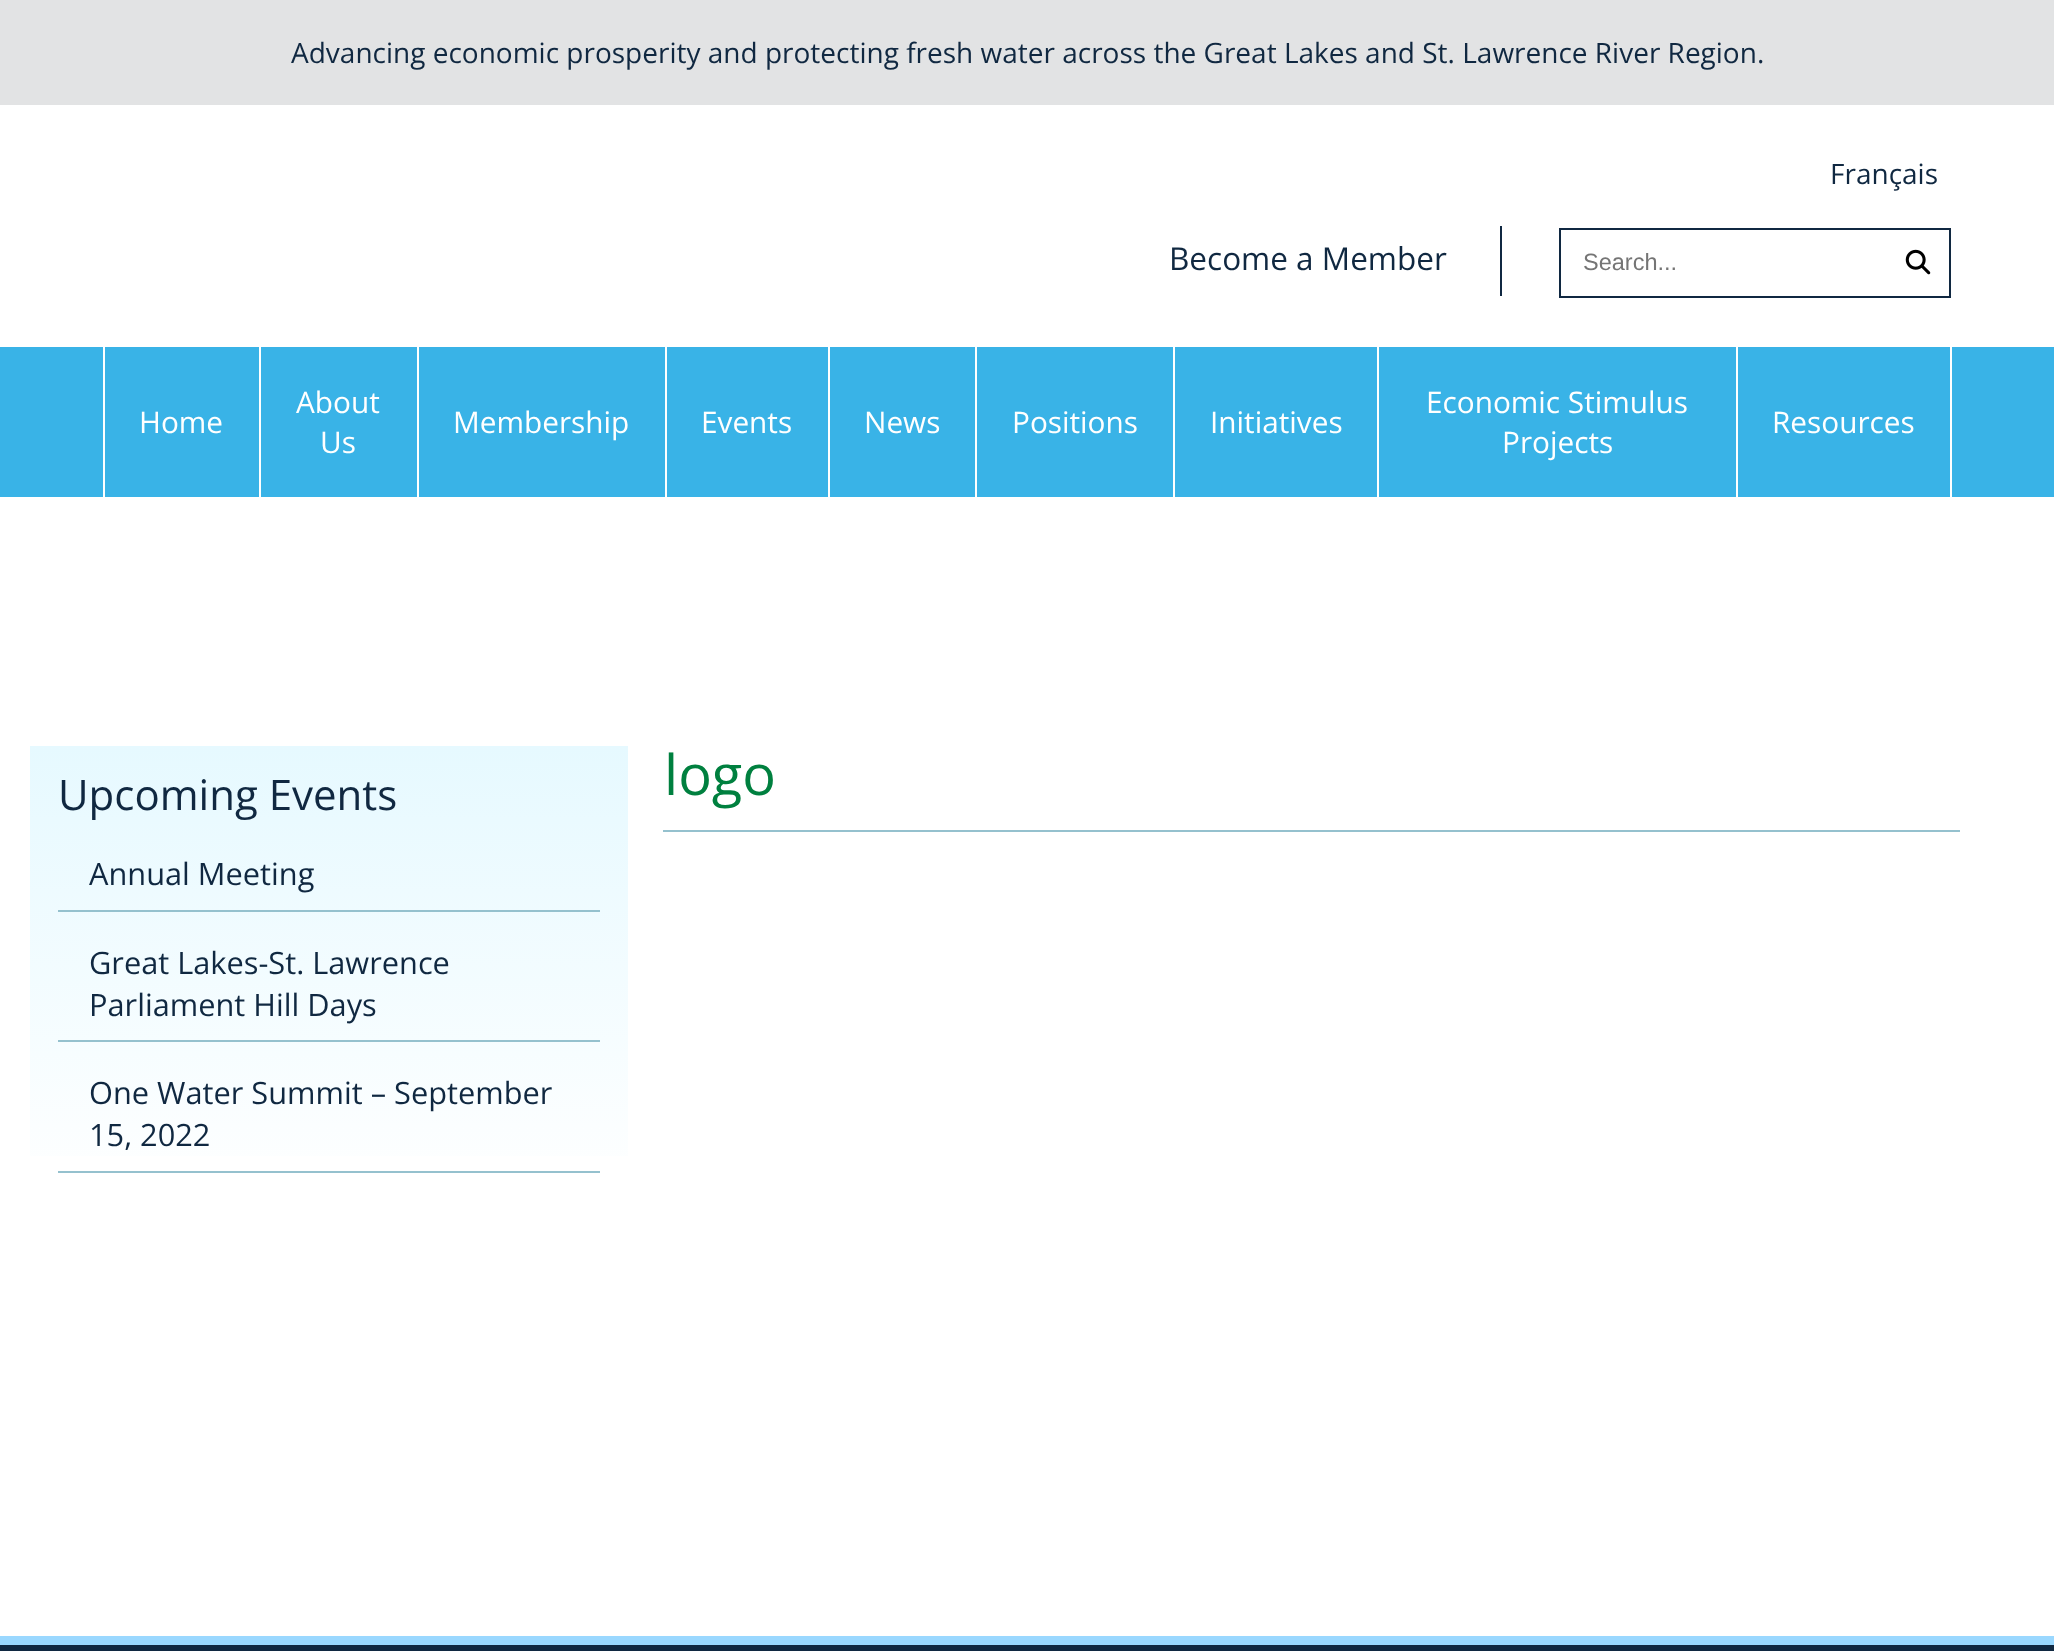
async function draw(canvas) {
	canvas.width = 2054;
	canvas.height = 1651;
	const c = canvas.getContext('2d');
	c.miterLimit = 4;
	c.fontKerning = 'normal';
	async function loadImage(src) {
		const img = new Image();
		img.src = src;
		await img.decode();
		return img;
	}
	let gradient;

	c.fillStyle = '#fff';
	c.fillRect(0, 0, 2054, 1651);
	c.fillStyle = '#e2e3e4';
	c.fillRect(0, 0, 2054, 105);
	c.font = '28px Open Sans';
	c.fillStyle = '#102841';
	c.fillText('Advancing economic prosperity and protecting fresh water across the Great Lakes and St. Lawrence River Region.', 291, 63);
	c.fillText('Français', 1830, 184);
	c.font = '31.5px Open Sans';
	c.fillText('Become a Member', 1169, 270);
	c.fillRect(1500, 226, 2, 70);
	c.strokeStyle = '#102841';
	c.lineWidth = 2;
	c.strokeRect(1560, 229, 390, 68);
	c.font = '23.5px Liberation Sans';
	c.fillStyle = '#757575';
	c.fillText('Search...', 1583, 270);
	c.drawImage(await loadImage('img1.png'), 1905, 249, 26, 26);
	for (const [x, y, w, h, color] of [
		[0, 347, 2054, 150, '#39b3e7'],
		[259, 347, 2, 150, '#fff'],
		[103, 347, 2, 150, '#fff'],
	]) {
		c.fillStyle = color;
		c.fillRect(x, y, w, h);
	}
	c.font = '29.75px Open Sans';
	c.fillText('Home', 139, 433);
	c.fillRect(417, 347, 2, 150);
	c.fillText('About', 296, 413);
	c.fillText('Us', 320, 453);
	c.fillRect(665, 347, 2, 150);
	c.fillText('Membership', 453, 433);
	c.fillRect(828, 347, 2, 150);
	c.fillText('Events', 701, 433);
	c.fillRect(975, 347, 2, 150);
	c.fillText('News', 864, 433);
	c.fillRect(1173, 347, 2, 150);
	c.fillText('Positions', 1012, 433);
	c.fillRect(1377, 347, 2, 150);
	c.fillText('Initiatives', 1210, 433);
	c.fillRect(1736, 347, 2, 150);
	c.fillText('Economic Stimulus', 1426, 413);
	c.fillText('Projects', 1502, 453);
	c.fillRect(1950, 347, 2, 150);
	c.fillText('Resources', 1772, 433);
	gradient = c.createLinearGradient(329, 746, 329, 1201);
	gradient.addColorStop(0, '#e6f9ff');
	gradient.addColorStop(1, '#fff');
	c.fillStyle = gradient;
	c.fillRect(30, 746, 598, 410);
	c.font = '42px Open Sans';
	c.fillStyle = '#102841';
	c.fillText('Upcoming Events', 58, 810);
	c.fillStyle = '#95c1ce';
	c.fillRect(58, 910, 542, 2);
	c.font = '30.75px Open Sans';
	c.fillStyle = '#102841';
	c.fillText('Annual Meeting', 89, 885);
	c.fillStyle = '#95c1ce';
	c.fillRect(58, 1040, 542, 2);
	c.fillStyle = '#102841';
	c.fillText('Great Lakes-St. Lawrence', 89, 974);
	c.fillText('Parliament Hill Days', 89, 1016);
	c.fillStyle = '#95c1ce';
	c.fillRect(58, 1171, 542, 2);
	c.fillStyle = '#102841';
	c.fillText('One Water Summit – September', 89, 1104);
	c.fillText('15, 2022', 89, 1146);
	c.fillStyle = '#95c1ce';
	c.fillRect(663, 830, 1297, 2);
	c.font = '56px Open Sans';
	c.fillStyle = '#00803f';
	c.fillText('logo', 664, 795);
	c.fillStyle = '#102841';
	c.fillRect(0, 1645, 2054, 6);
	c.fillStyle = '#9ad8ff';
	c.fillRect(0, 1636, 2054, 9);
}

draw(document.querySelector('canvas'));
